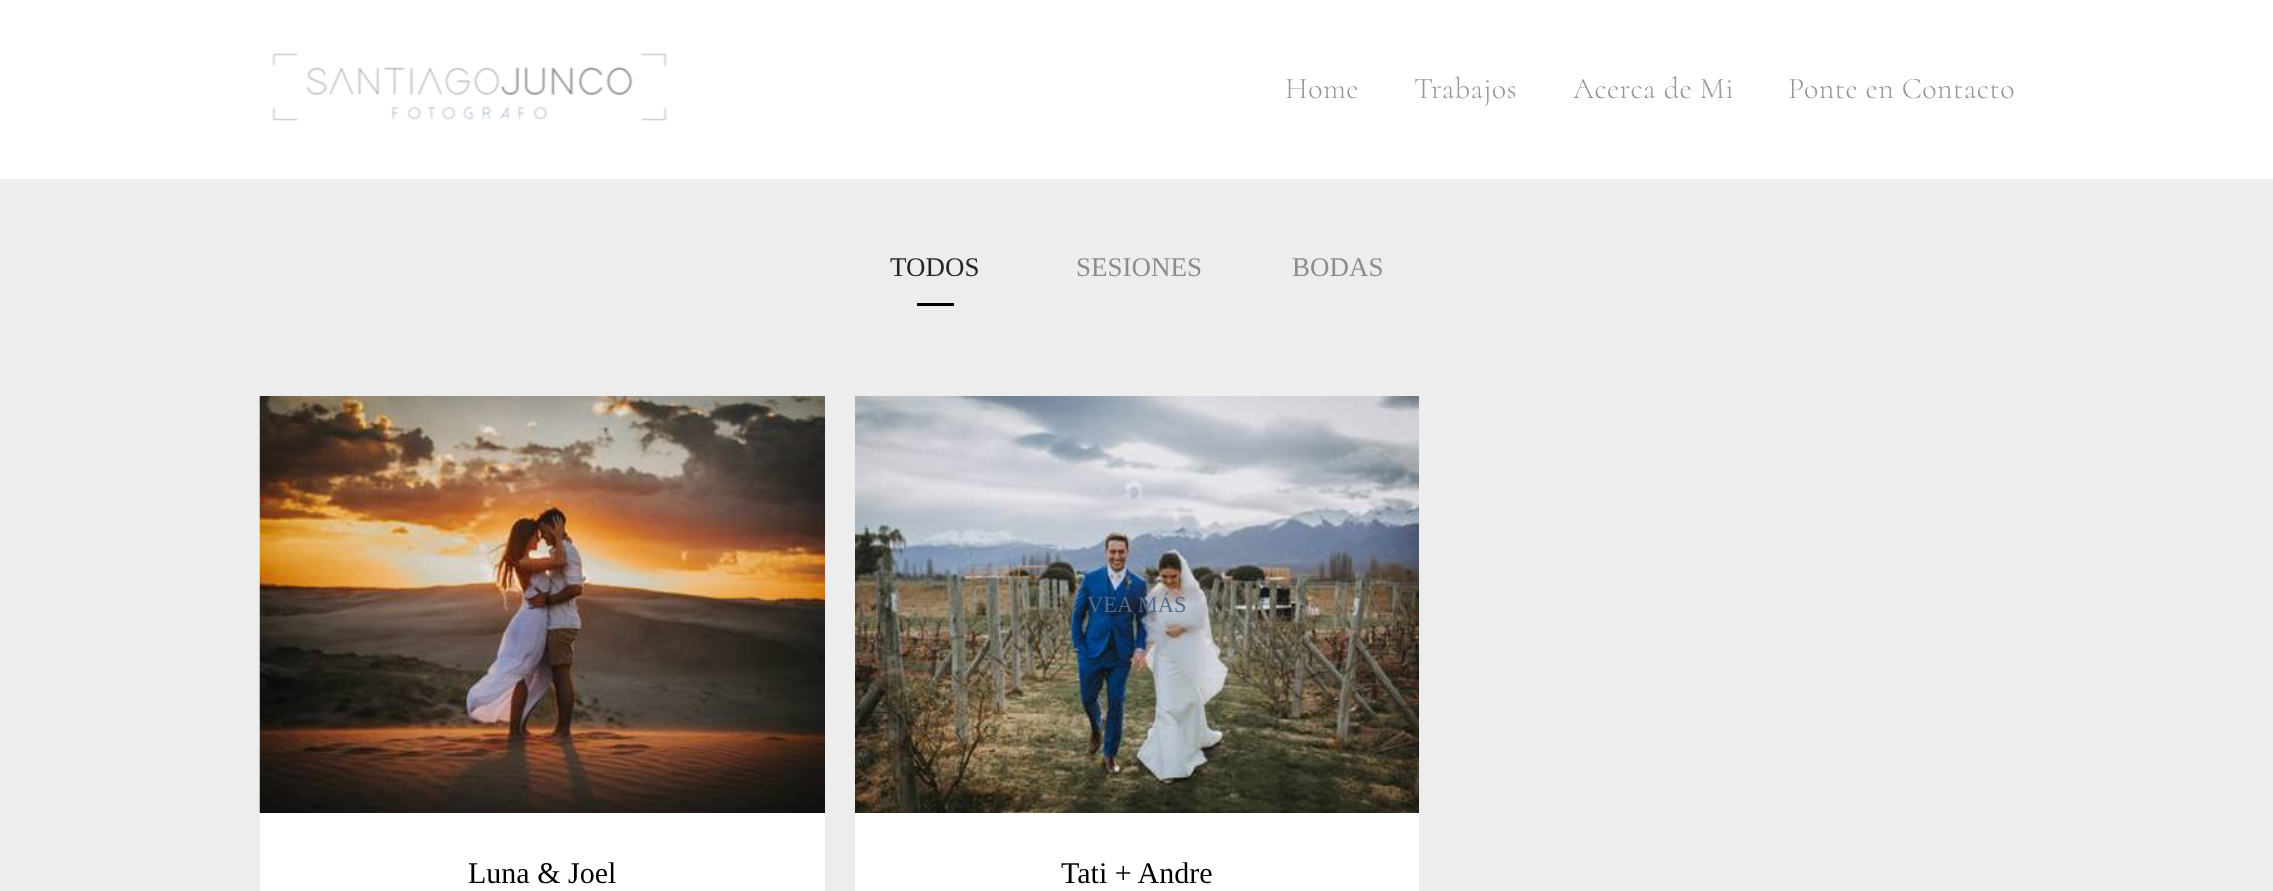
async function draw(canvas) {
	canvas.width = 2273;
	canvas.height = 891;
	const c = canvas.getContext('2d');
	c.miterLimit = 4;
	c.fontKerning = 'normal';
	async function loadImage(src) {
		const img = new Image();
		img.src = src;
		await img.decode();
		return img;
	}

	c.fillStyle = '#ededed';
	c.fillRect(0, 0, 2273, 891);
	c.fillStyle = '#fff';
	c.fillRect(0, 0, 2273, 179);
	c.drawImage(await loadImage('img1.png'), 272, 53, 395, 68);
	c.letterSpacing = '0.5px';
	c.font = '300 30px Cormorant';
	c.fillStyle = '#969696';
	for (const [text, x, y] of [
		['Home', 1285, 98],
		['Trabajos', 1414, 98],
		['Acerca de Mi', 1573, 98],
		['Ponte en Contacto', 1788, 98],
	]) {
		c.fillText(text, x, y);
	}
	c.letterSpacing = '0px';
	c.font = '27px Liberation Serif';
	c.fillStyle = '#262626';
	c.fillText('TODOS', 890, 276);
	c.fillStyle = '#000';
	c.fillRect(917, 303, 37, 3);
	c.fillStyle = '#8c8c8c';
	c.fillText('SESIONES', 1076, 276);
	c.fillText('BODAS', 1292, 276);
	c.fillStyle = '#fff';
	c.fillRect(260, 813, 565, 78);
	c.drawImage(await loadImage('img2.png'), 259, 396, 566, 417);
	c.font = '30px Liberation Serif';
	c.fillStyle = '#000';
	c.fillText('Luna & Joel', 468, 883);
	c.fillStyle = '#fff';
	c.fillRect(855, 813, 564, 78);
	c.drawImage(await loadImage('img3.png'), 855, 396, 564, 417);
	c.font = '22.5px Liberation Serif';
	c.fillStyle = '#566b85';
	c.fillText('VEA MÁS', 1087, 612);
	c.font = '30px Liberation Serif';
	c.fillStyle = '#000';
	c.fillText('Tati + Andre', 1061, 883);
}

draw(document.querySelector('canvas'));
